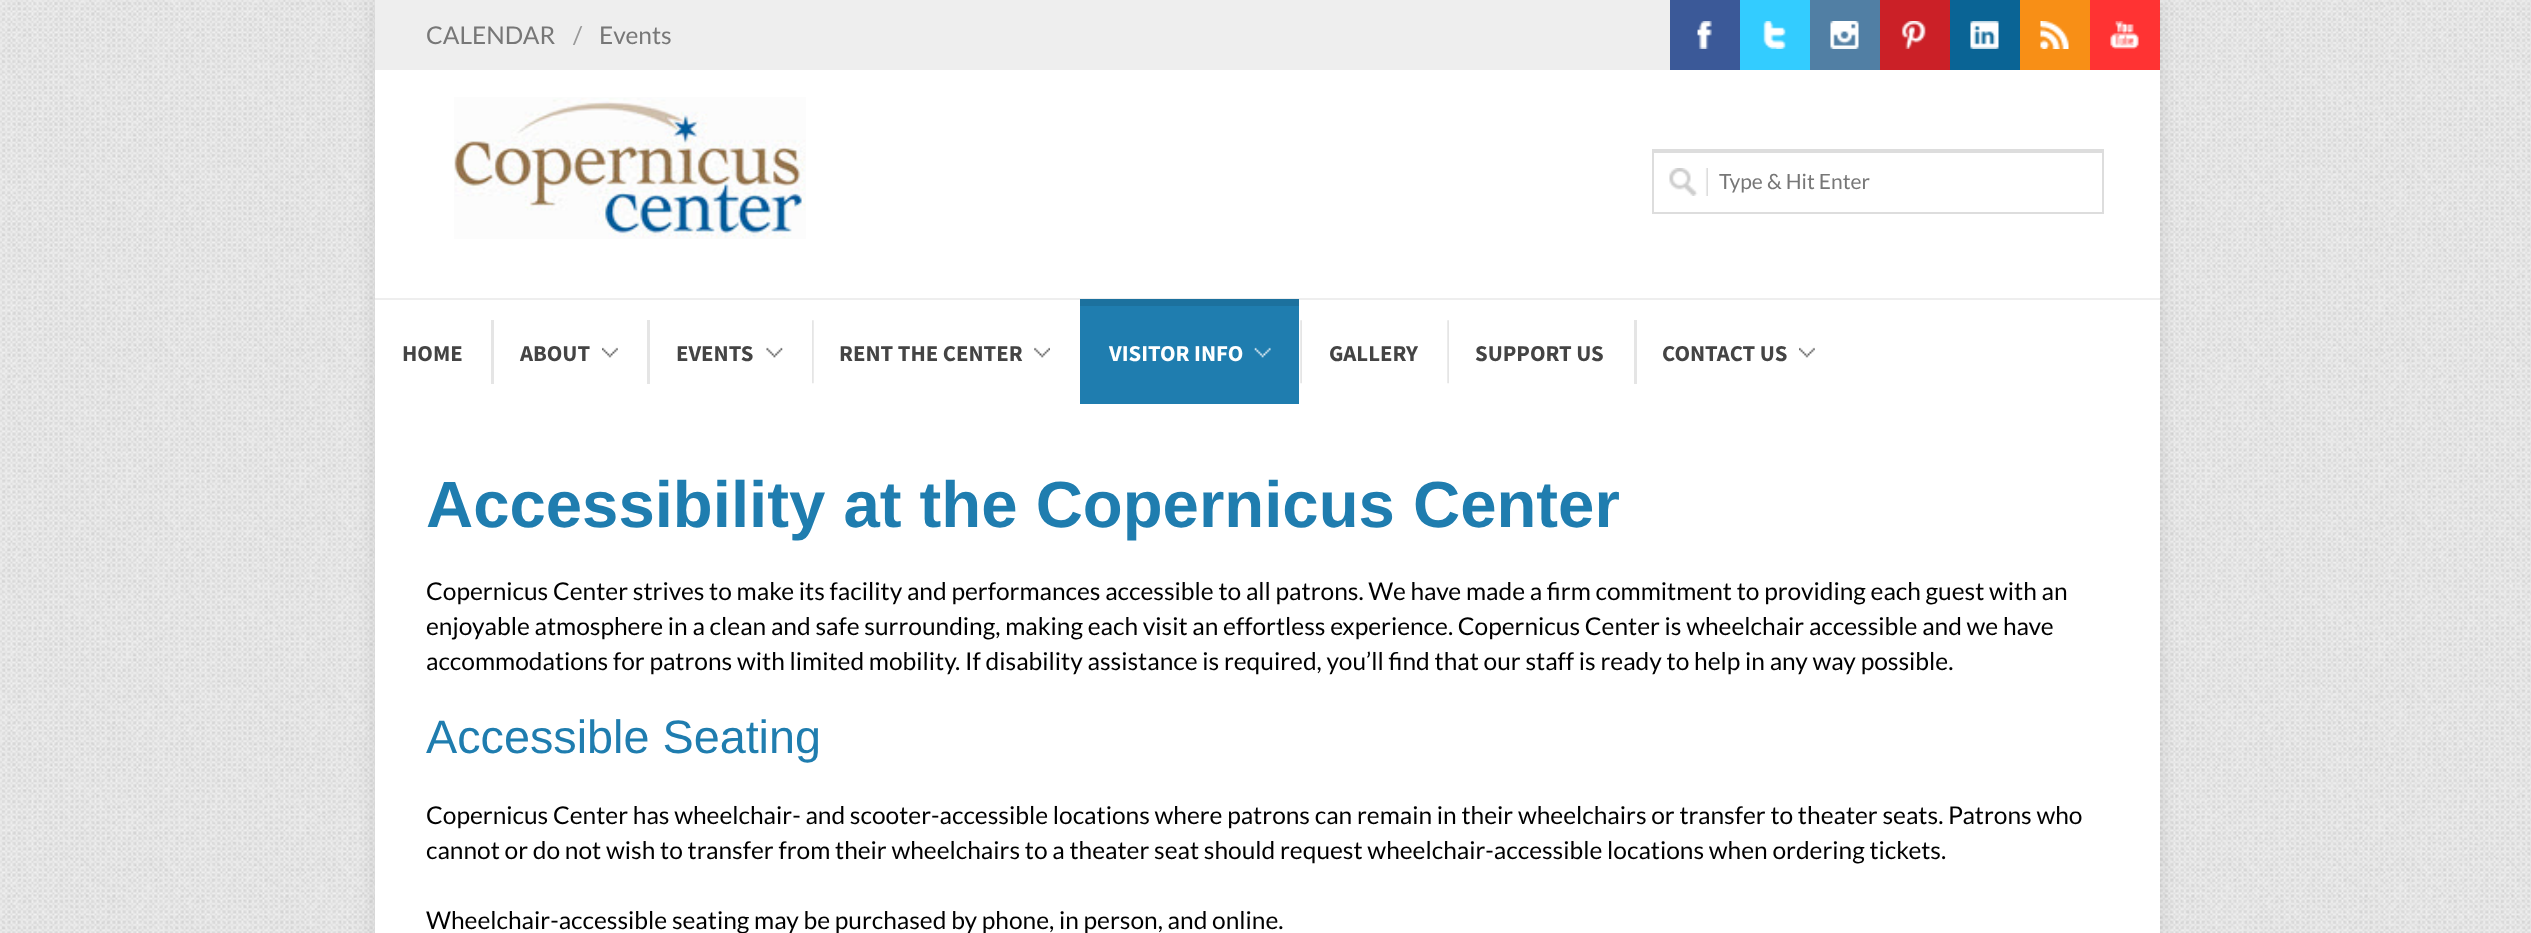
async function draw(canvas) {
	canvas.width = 2531;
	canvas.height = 933;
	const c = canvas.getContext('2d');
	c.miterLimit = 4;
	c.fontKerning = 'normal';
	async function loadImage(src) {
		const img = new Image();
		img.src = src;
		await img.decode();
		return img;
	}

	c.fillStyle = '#fff';
	c.fillRect(0, 0, 2531, 933);
	c.drawImage(await loadImage('img1.png'), 0, 0, 2531, 933);
	c.fillStyle = '#0000001a';
	c.filter = 'blur(9px)';
	c.beginPath();
	c.rect(375, 0, 1785, 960);
	c.fill();
	c.filter = 'none';
	c.fillStyle = '#fff';
	c.fillRect(375, 70, 1785, 863);
	c.fillStyle = '#eee';
	c.fillRect(375, 0, 1295, 70);
	c.font = '24.5px Lato';
	c.fillStyle = '#777';
	c.fillText('CALENDAR', 426, 44);
	c.fillStyle = '#999';
	c.fillText('/', 573, 44);
	c.fillStyle = '#777';
	c.fillText('Events', 599, 44);
	c.fillStyle = '#3b5998';
	c.fillRect(1670, 0, 70, 70);
	c.drawImage(await loadImage('img2.png'), 1697, 21, 15, 28);
	c.fillStyle = '#3cf';
	c.fillRect(1740, 0, 70, 70);
	c.drawImage(await loadImage('img3.png'), 1763, 21, 23, 28);
	c.fillStyle = '#517fa4';
	c.fillRect(1810, 0, 70, 70);
	c.drawImage(await loadImage('img4.png'), 1830, 21, 29, 28);
	c.fillStyle = '#cb2027';
	c.fillRect(1880, 0, 70, 70);
	c.drawImage(await loadImage('img5.png'), 1901, 21, 25, 28);
	c.fillStyle = '#0a6495';
	c.fillRect(1950, 0, 70, 70);
	c.drawImage(await loadImage('img6.png'), 1970, 21, 29, 28);
	c.fillStyle = '#f88f16';
	c.fillRect(2020, 0, 70, 70);
	c.drawImage(await loadImage('img7.png'), 2040, 21, 29, 28);
	c.fillStyle = '#f33';
	c.fillRect(2090, 0, 70, 70);
	c.drawImage(await loadImage('img8.png'), 2110, 21, 29, 28);
	c.drawImage(await loadImage('img9.png'), 454, 97, 352, 142);
	c.drawImage(await loadImage('img10.png'), 1669, 168, 39, 28);
	for (const [x, y, w, h, color] of [
		[1652, 149, 452, 4, '#ddd'],
		[2102, 149, 2, 65, '#ddd'],
		[1652, 212, 452, 2, '#ddd'],
		[1652, 149, 2, 65, '#ddd'],
	]) {
		c.fillStyle = color;
		c.fillRect(x, y, w, h);
	}
	c.font = '21px Lato';
	c.fillStyle = '#777';
	c.fillText('Type & Hit Enter', 1719, 189);
	c.fillStyle = '#eee';
	c.fillRect(375, 298, 1785, 2);
	c.font = 'bold 22.75px Source Sans Pro';
	c.fillStyle = '#444';
	c.fillText('HOME', 402, 361);
	c.fillStyle = '#e5e5e5';
	c.fillRect(491, 320, 3, 64);
	c.drawImage(await loadImage('img11.png'), 602, 347, 16, 11);
	c.fillStyle = '#444';
	c.fillText('ABOUT', 520, 361);
	c.fillStyle = '#e5e5e5';
	c.fillRect(647, 320, 3, 64);
	c.drawImage(await loadImage('img12.png'), 766, 347, 17, 11);
	c.fillStyle = '#444';
	c.fillText('EVENTS', 676, 361);
	c.drawImage(await loadImage('img13.png'), 812, 320, 2, 64);
	c.drawImage(await loadImage('img14.png'), 1034, 347, 16, 11);
	c.fillText('RENT THE CENTER', 839, 361);
	c.fillStyle = '#1f7daf';
	c.fillRect(1080, 306, 219, 98);
	c.fillStyle = '#1c719e';
	c.fillRect(1080, 299, 219, 7);
	c.drawImage(await loadImage('img15.png'), 1254, 347, 17, 11);
	c.fillStyle = '#fff';
	c.fillText('VISITOR INFO', 1109, 361);
	c.drawImage(await loadImage('img16.png'), 1300, 320, 2, 64);
	c.fillStyle = '#444';
	c.fillText('GALLERY', 1329, 361);
	c.drawImage(await loadImage('img16.png'), 1447, 320, 2, 64);
	c.fillText('SUPPORT US', 1475, 361);
	c.fillStyle = '#e5e5e5';
	c.fillRect(1634, 320, 3, 64);
	c.drawImage(await loadImage('img17.png'), 1799, 347, 16, 11);
	c.fillStyle = '#444';
	c.fillText('CONTACT US', 1662, 361);
	c.font = 'bold 65.3px Liberation Sans';
	c.fillStyle = '#1f7daf';
	c.fillText('Accessibility at the Copernicus Center', 426, 527);
	c.font = '24.5px Lato';
	c.fillStyle = '#000';
	for (const [text, x, y] of [
		['Copernicus Center strives to make its facility and performances accessible to all patrons. We have made a firm commitment to providing each guest with an', 426, 600],
		['enjoyable atmosphere in a clean and safe surrounding, making each visit an effortless experience. Copernicus Center is wheelchair accessible and we have', 426, 635],
		['accommodations for patrons with limited mobility. If disability assistance is required, you’ll find that our staff is ready to help in any way possible.', 426, 670],
	]) {
		c.fillText(text, x, y);
	}
	c.font = '46.75px Liberation Sans';
	c.fillStyle = '#1f7daf';
	c.fillText('Accessible Seating', 426, 753);
	c.font = '24.5px Lato';
	c.fillStyle = '#000';
	for (const [text, x, y] of [
		['Copernicus Center has wheelchair- and scooter-accessible locations where patrons can remain in their wheelchairs or transfer to theater seats. Patrons who', 426, 824],
		['cannot or do not wish to transfer from their wheelchairs to a theater seat should request wheelchair-accessible locations when ordering tickets.', 426, 859],
		['Wheelchair-accessible seating may be purchased by phone, in person, and online.', 426, 929],
	]) {
		c.fillText(text, x, y);
	}
}

draw(document.querySelector('canvas'));
